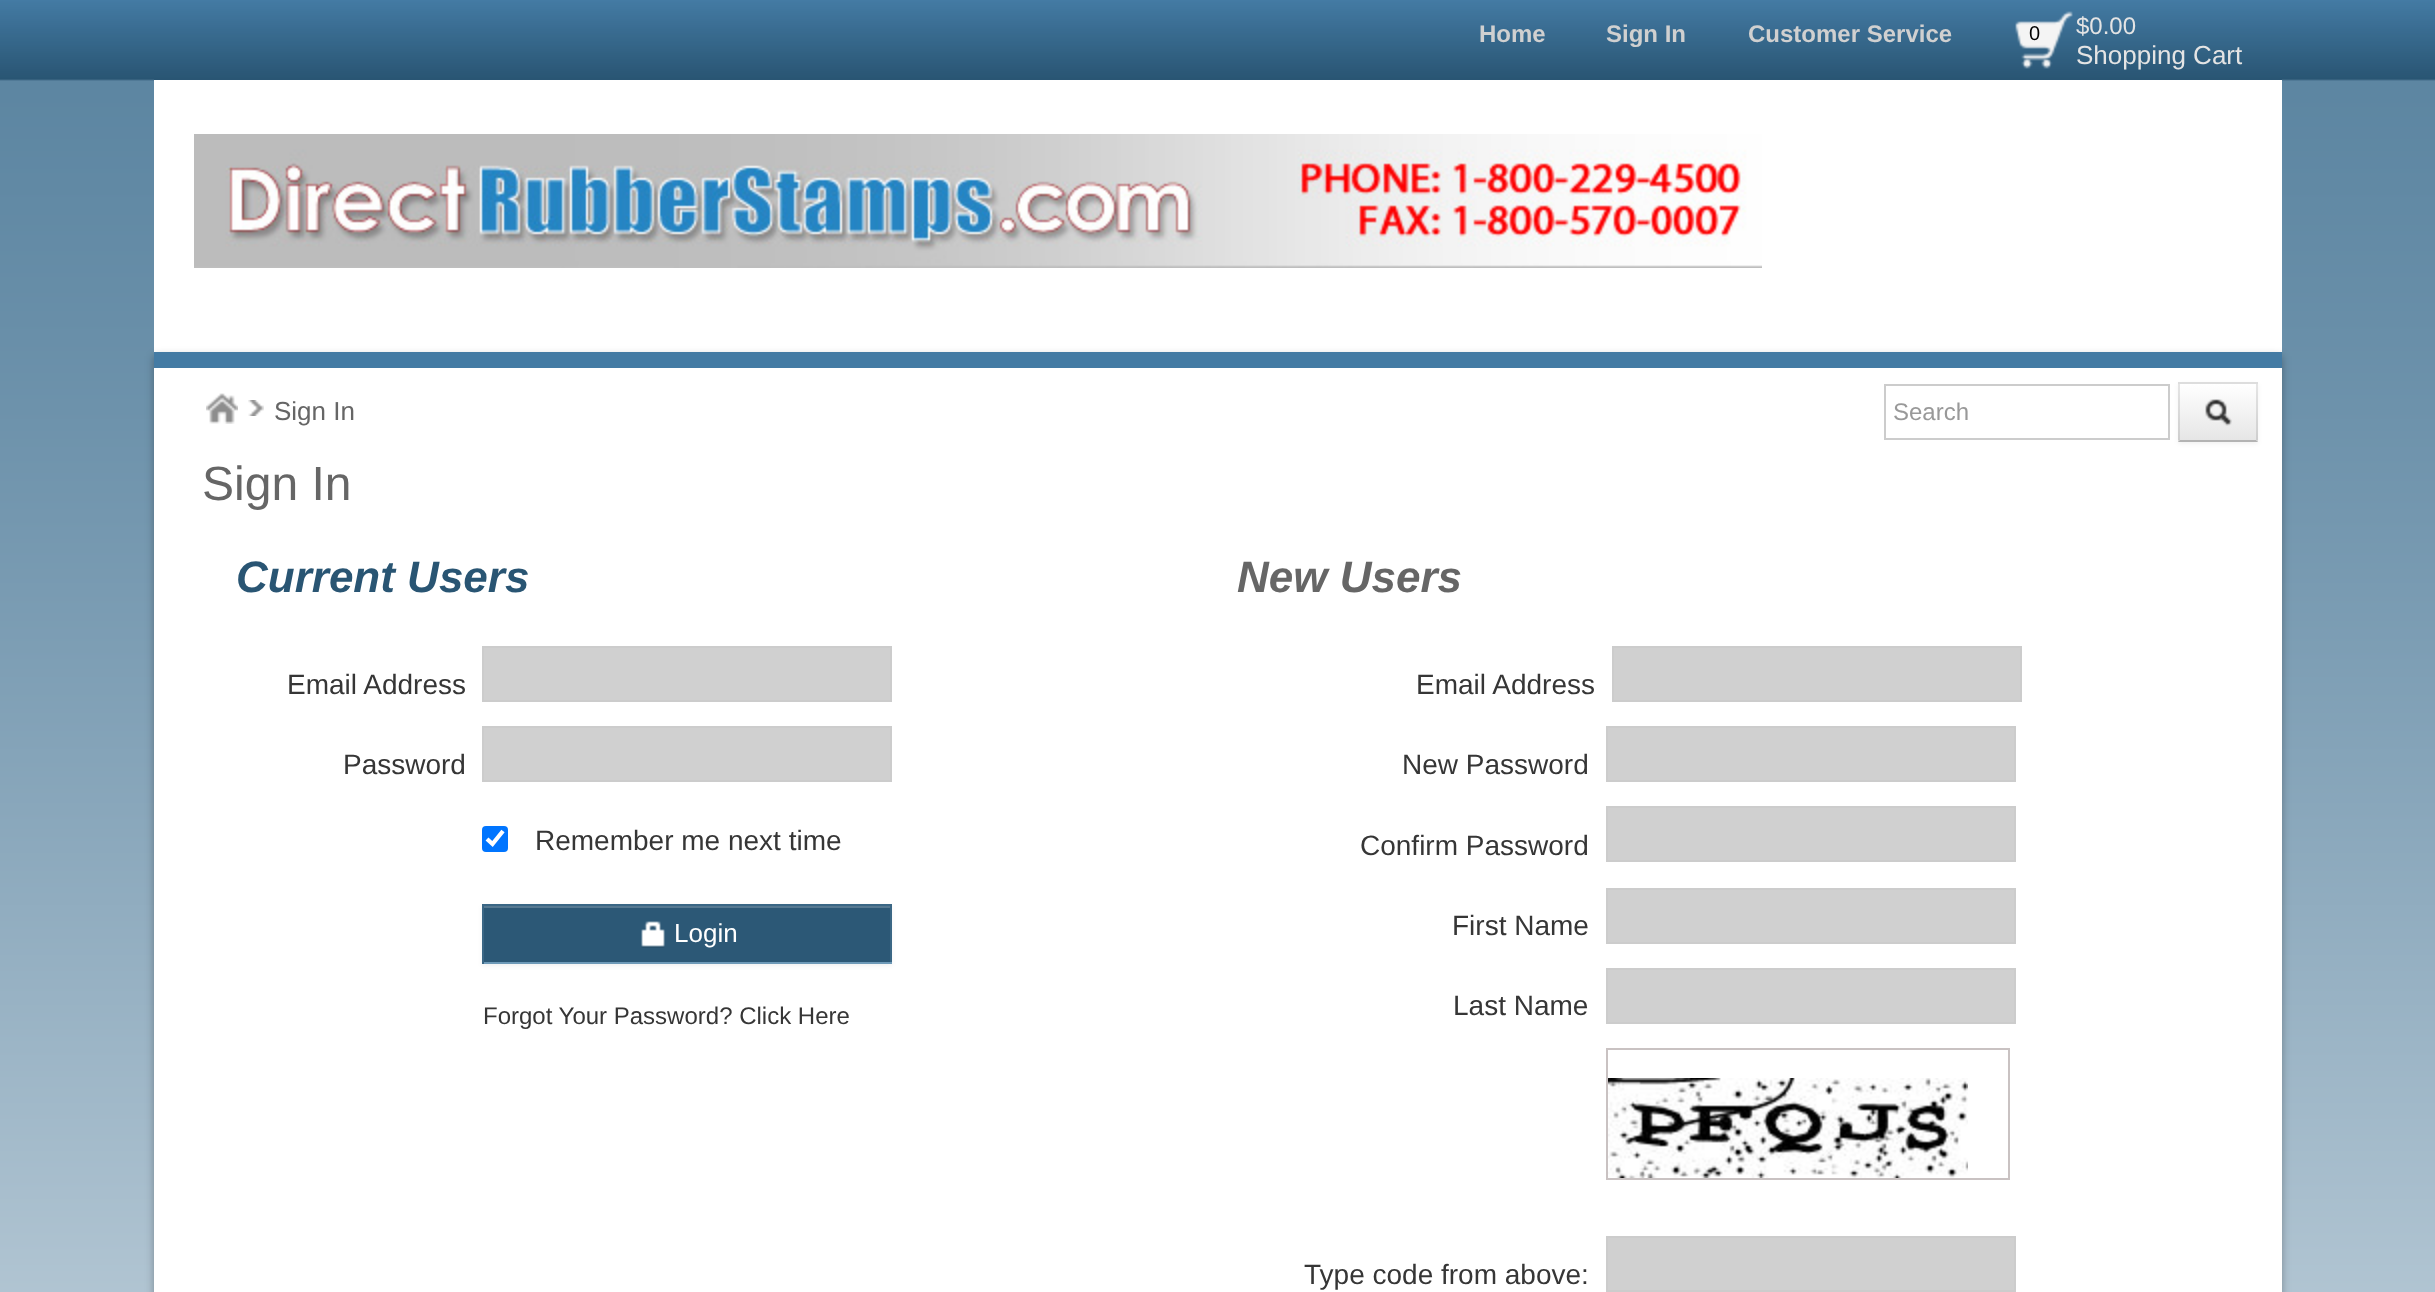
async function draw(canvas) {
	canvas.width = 2435;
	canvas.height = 1292;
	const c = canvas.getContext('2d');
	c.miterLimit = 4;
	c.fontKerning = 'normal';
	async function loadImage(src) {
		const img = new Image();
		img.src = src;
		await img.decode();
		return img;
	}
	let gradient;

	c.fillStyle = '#fff';
	c.fillRect(0, 0, 2435, 1292);
	c.drawImage(await loadImage('img1.png'), 0, 0, 2435, 1292);
	c.fillRect(154, 80, 2128, 1212);
	gradient = c.createLinearGradient(1218, 0, 1218, 80);
	gradient.addColorStop(0, '#447ba4');
	gradient.addColorStop(1, '#295573');
	c.fillStyle = gradient;
	c.fillRect(154, 79, 2128, 1);
	c.font = 'bold 24px Liberation Sans';
	c.fillStyle = '#d0d0d0';
	for (const [text, x, y] of [
		['Home', 1479, 42],
		['Sign In', 1606, 42],
		['Customer Service', 1748, 42],
	]) {
		c.fillText(text, x, y);
	}
	c.drawImage(await loadImage('img2.png'), 2015, 11, 58, 58);
	c.font = '20px Liberation Sans';
	c.fillStyle = '#000';
	c.fillText('0', 2029, 40);
	c.font = '24px Liberation Sans';
	c.fillStyle = '#e4e4e4';
	c.fillText('$0.00', 2076, 34);
	c.font = '26px Liberation Sans';
	c.fillText('Shopping Cart', 2076, 64);
	c.drawImage(await loadImage('img3.png'), 194, 134, 1568, 134);
	c.save();
	c.beginPath();
	c.moveTo(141, 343);
	c.lineTo(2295, 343);
	c.lineTo(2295, 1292);
	c.lineTo(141, 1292);
	c.closePath();
	c.moveTo(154, 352);
	c.lineTo(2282, 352);
	c.lineTo(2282, 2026);
	c.lineTo(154, 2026);
	c.closePath();
	c.clip('evenodd');
	c.fillStyle = '#0000004d';
	c.filter = 'blur(4px)';
	c.beginPath();
	c.rect(154, 356, 2128, 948);
	c.fill();
	c.filter = 'none';
	c.restore();
	c.fillStyle = '#447ba4';
	c.fillRect(154, 352, 2128, 16);
	c.drawImage(await loadImage('img4.png'), 206, 393, 32, 31);
	c.drawImage(await loadImage('img5.png'), 248, 400, 16, 16);
	c.fillStyle = '#666';
	c.fillText('Sign In', 274, 420);
	c.strokeStyle = '#ccc';
	c.lineWidth = 2;
	c.strokeRect(1885, 385, 284, 54);
	c.font = '24px Liberation Sans';
	c.fillStyle = '#999';
	c.fillText('Search', 1893, 420);
	c.fillStyle = '#0000000d';
	c.filter = 'blur(2px)';
	c.beginPath();
	c.rect(2178, 384, 80, 60);
	c.fill();
	c.filter = 'none';
	c.fillStyle = '#f5f5f5';
	c.fillRect(2178, 382, 80, 60);
	gradient = c.createLinearGradient(2218, 384, 2218, 440);
	gradient.addColorStop(0, '#fff');
	gradient.addColorStop(1, '#e6e6e6');
	c.fillStyle = gradient;
	c.fillRect(2178, 384, 80, 56);
	c.fillStyle = '#ddd';
	c.beginPath();
	c.moveTo(2178, 382);
	c.lineTo(2258, 382);
	c.lineTo(2256, 384);
	c.lineTo(2180, 384);
	c.closePath();
	c.fill();
	c.fillStyle = '#0000001a';
	c.beginPath();
	c.moveTo(2258, 382);
	c.lineTo(2258, 442);
	c.lineTo(2256, 440);
	c.lineTo(2256, 384);
	c.closePath();
	c.fill();
	c.fillStyle = '#b3b3b3';
	c.beginPath();
	c.moveTo(2258, 442);
	c.lineTo(2178, 442);
	c.lineTo(2180, 440);
	c.lineTo(2256, 440);
	c.closePath();
	c.fill();
	c.fillStyle = '#0000001a';
	c.beginPath();
	c.moveTo(2178, 442);
	c.lineTo(2178, 382);
	c.lineTo(2180, 384);
	c.lineTo(2180, 440);
	c.closePath();
	c.fill();
	c.drawImage(await loadImage('img6.png'), 2205, 399, 27, 27);
	c.font = '48px Liberation Sans';
	c.fillStyle = '#666';
	c.fillText('Sign In', 202, 500);
	c.font = 'italic bold 44px Liberation Sans';
	c.fillStyle = '#295573';
	c.fillText('Current Users', 236, 592);
	c.font = '28px Liberation Sans';
	c.fillStyle = '#363636';
	c.fillText('Email Address', 287, 694);
	c.fillStyle = '#d0d0d0';
	c.beginPath();
	c.rect(483, 647, 408, 54);
	c.fill();
	c.stroke();
	c.fillStyle = '#363636';
	c.fillText('Password', 343, 774);
	c.fillStyle = '#d0d0d0';
	c.beginPath();
	c.rect(483, 727, 408, 54);
	c.fill();
	c.stroke();
	c.fillStyle = '#0075ff';
	c.beginPath();
	c.roundRect(482, 826, 26, 26, 4);
	c.fill();
	c.beginPath();
	c.moveTo(487, 839);
	c.lineTo(492.5, 844);
	c.lineTo(503, 831);
	c.strokeStyle = '#fff';
	c.lineWidth = 4.2;
	c.stroke();
	c.fillStyle = '#363636';
	c.fillText('Remember me next time', 535, 850);
	c.fillStyle = '#0000000d';
	c.filter = 'blur(2px)';
	c.beginPath();
	c.rect(482, 906, 410, 60);
	c.fill();
	c.filter = 'none';
	for (const [x, y, w, h, color] of [
		[484, 908, 406, 54, '#2c5876'],
		[484, 906, 406, 2, '#567991'],
		[482, 904, 410, 2, '#3b6785'],
		[890, 904, 2, 60, '#3b6785'],
		[482, 962, 410, 2, '#6e9ab8'],
		[482, 904, 2, 60, '#3b6785'],
	]) {
		c.fillStyle = color;
		c.fillRect(x, y, w, h);
	}
	c.drawImage(await loadImage('img7.png'), 641, 921, 24, 27);
	c.font = '26px Liberation Sans';
	c.fillStyle = '#fff';
	c.fillText('Login', 674, 942);
	c.font = '24px Liberation Sans';
	c.fillStyle = '#363636';
	c.fillText('Forgot Your Password? Click Here', 483, 1024);
	c.font = 'italic bold 44px Liberation Sans';
	c.fillStyle = '#666';
	c.fillText('New Users', 1237, 592);
	c.font = '28px Liberation Sans';
	c.fillStyle = '#363636';
	c.fillText('Email Address', 1416, 694);
	c.fillStyle = '#d0d0d0';
	c.beginPath();
	c.rect(1613, 647, 408, 54);
	c.fill();
	c.strokeStyle = '#ccc';
	c.lineWidth = 2;
	c.stroke();
	c.fillStyle = '#363636';
	c.fillText('New Password', 1402, 774);
	c.fillStyle = '#d0d0d0';
	c.beginPath();
	c.rect(1607, 727, 408, 54);
	c.fill();
	c.stroke();
	c.fillStyle = '#363636';
	c.fillText('Confirm Password', 1360, 855);
	c.fillStyle = '#d0d0d0';
	c.beginPath();
	c.rect(1607, 807, 408, 54);
	c.fill();
	c.stroke();
	c.fillStyle = '#363636';
	c.fillText('First Name', 1452, 935);
	c.fillStyle = '#d0d0d0';
	c.beginPath();
	c.rect(1607, 889, 408, 54);
	c.fill();
	c.stroke();
	c.fillStyle = '#363636';
	c.fillText('Last Name', 1453, 1015);
	c.fillStyle = '#d0d0d0';
	c.beginPath();
	c.rect(1607, 969, 408, 54);
	c.fill();
	c.stroke();
	c.fillStyle = '#363636';
	c.fillText('Type code from above:', 1304, 1284);
	c.strokeStyle = '#c9c2c2';
	c.strokeRect(1607, 1049, 402, 130);
	c.drawImage(await loadImage('img8.png'), 1608, 1078, 360, 100);
	c.fillStyle = '#d0d0d0';
	c.beginPath();
	c.rect(1607, 1237, 408, 54);
	c.fill();
	c.strokeStyle = '#ccc';
	c.stroke();
}

draw(document.querySelector('canvas'));
